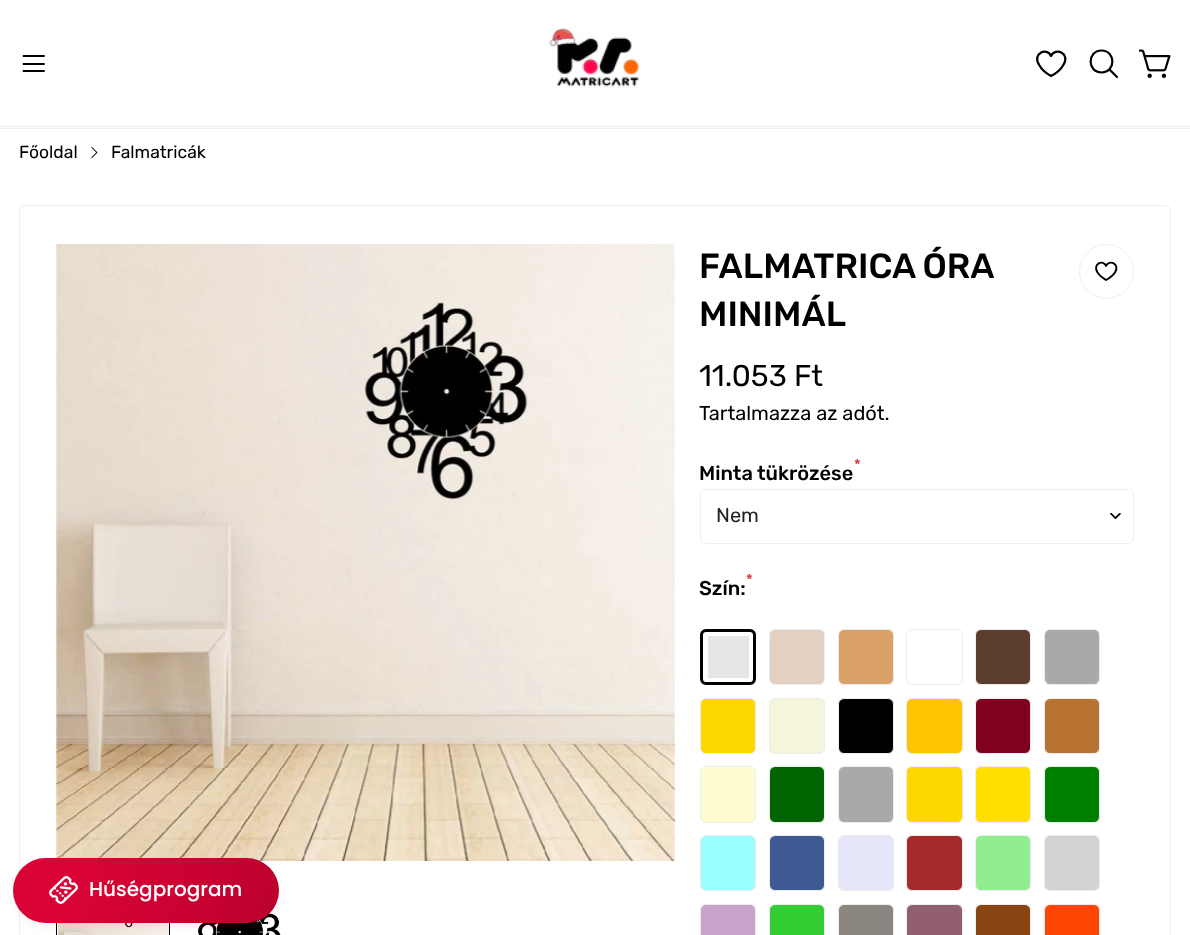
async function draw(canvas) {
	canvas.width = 1190;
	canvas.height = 935;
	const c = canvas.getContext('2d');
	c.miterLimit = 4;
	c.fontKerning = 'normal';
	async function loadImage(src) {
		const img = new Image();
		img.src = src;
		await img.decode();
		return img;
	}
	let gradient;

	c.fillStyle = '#fff';
	c.fillRect(0, 0, 1190, 935);
	c.fillStyle = '#eee';
	c.fillRect(0, 128, 1190, 1);
	c.fillRect(0, 126, 1190, 1);
	c.beginPath();
	c.moveTo(23.5, 64);
	c.lineTo(44, 64);
	c.moveTo(23.5, 56);
	c.lineTo(44, 56);
	c.moveTo(23.5, 71);
	c.lineTo(44, 71);
	c.strokeStyle = '#000';
	c.lineWidth = 1.9;
	c.lineCap = 'round';
	c.lineJoin = 'round';
	c.stroke();
	c.drawImage(await loadImage('img1.png'), 549, 28, 93, 61);
	c.beginPath();
	c.moveTo(1051, 76);
	c.bezierCurveTo(1046.5, 73.5, 1042, 70, 1039.5, 65.5);
	c.bezierCurveTo(1031, 53, 1047.5, 47, 1051, 56);
	c.bezierCurveTo(1055, 47, 1071.5, 53, 1063, 65.5);
	c.bezierCurveTo(1060.5, 70, 1056, 73.5, 1051, 76);
	c.closePath();
	c.lineWidth = 2.2;
	c.stroke();
	c.beginPath();
	c.moveTo(1101.5, 72.5);
	c.bezierCurveTo(1116, 72.5, 1116, 50.5, 1101.5, 50.5);
	c.bezierCurveTo(1087, 50.5, 1087, 72.5, 1101.5, 72.5);
	c.closePath();
	c.moveTo(1109.5, 69.5);
	c.lineTo(1117, 77);
	c.stroke();
	c.drawImage(await loadImage('img2.png'), 1139, 49, 32, 29);
	c.font = '17.5px Rubik';
	c.fillStyle = '#000';
	c.fillText('Főoldal', 19, 158);
	c.drawImage(await loadImage('img3.png'), 91, 147, 7, 11);
	c.fillText('Falmatricák', 111, 158);
	c.drawImage(await loadImage('img4.png'), 56, 244, 619, 617);
	c.lineWidth = 1;
	c.lineJoin = 'miter';
	c.strokeRect(56.5, 880.5, 113, 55);
	c.drawImage(await loadImage('img5.png'), 58, 923, 111, 12);
	c.drawImage(await loadImage('img6.png'), 197, 886, 84, 49);
	c.beginPath();
	c.roundRect(19.5, 205.5, 1151, 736, 5.5);
	c.strokeStyle = '#eee';
	c.stroke();
	c.wordSpacing = '-1px';
	c.font = '500 35px Rubik';
	c.fillText('FALMATRICA ÓRA', 699, 278);
	c.wordSpacing = '0px';
	c.fillText('MINIMÁL', 699, 326);
	c.beginPath();
	c.arc(1106.5, 271.5, 27, 0, 2 * Math.PI);
	c.stroke();
	c.beginPath();
	c.moveTo(1106, 280);
	c.bezierCurveTo(1103, 278, 1099.5, 275.5, 1097.5, 272.5);
	c.bezierCurveTo(1092, 264, 1103.5, 259, 1106, 266);
	c.bezierCurveTo(1109, 259, 1120.5, 264, 1115, 272.5);
	c.bezierCurveTo(1113, 275.5, 1109.5, 278, 1106, 280);
	c.closePath();
	c.strokeStyle = '#000';
	c.lineWidth = 1.9;
	c.lineJoin = 'round';
	c.stroke();
	c.font = '30px Rubik';
	c.fillText('11.053 Ft', 699, 386);
	c.font = '20px Rubik';
	c.fillText('Tartalmazza az adót.', 699, 420);
	c.font = '500 15px Rubik';
	c.fillStyle = '#da3f3f';
	c.fillText('*', 854, 470);
	c.font = '500 20px Rubik';
	c.fillStyle = '#000';
	c.fillText('Minta tükrözése', 699, 480);
	c.drawImage(await loadImage('img7.png'), 1110, 513, 11, 7);
	c.beginPath();
	c.roundRect(700.5, 489.5, 433, 54, 5.5);
	c.strokeStyle = '#eee';
	c.lineWidth = 1;
	c.lineJoin = 'miter';
	c.stroke();
	c.font = '20px Rubik';
	c.fillStyle = '#222';
	c.fillText('Nem', 716, 522);
	c.font = '500 15px Rubik';
	c.fillStyle = '#da3f3f';
	c.fillText('*', 746, 585);
	c.font = '500 20px Rubik';
	c.fillStyle = '#000';
	c.fillText('Szín:', 699, 595);
	c.fillStyle = '#e6e6e6';
	c.beginPath();
	c.roundRect(700, 629, 56, 56, 6);
	c.fill();
	c.beginPath();
	c.roundRect(705.5, 633.5, 46, 47, 1.5);
	c.strokeStyle = '#fff';
	c.lineWidth = 5;
	c.stroke();
	c.beginPath();
	c.roundRect(701.5, 630.5, 53, 53, 4.5);
	c.strokeStyle = '#000';
	c.lineWidth = 3;
	c.stroke();
	c.fillStyle = '#e4d0c1';
	c.beginPath();
	c.roundRect(769.5, 629.5, 55, 55, 5.5);
	c.fill();
	c.strokeStyle = '#ececec';
	c.lineWidth = 1;
	c.stroke();
	c.fillStyle = '#d9a167';
	c.beginPath();
	c.roundRect(838.5, 629.5, 55, 55, 5.5);
	c.fill();
	c.stroke();
	c.beginPath();
	c.roundRect(906.5, 629.5, 56, 55, 5.5);
	c.stroke();
	c.fillStyle = '#5a3d2c';
	c.beginPath();
	c.roundRect(975.5, 629.5, 55, 55, 5.5);
	c.fill();
	c.stroke();
	c.fillStyle = '#a9a9a9';
	c.beginPath();
	c.roundRect(1044.5, 629.5, 55, 55, 5.5);
	c.fill();
	c.stroke();
	c.fillStyle = '#ffd700';
	c.beginPath();
	c.roundRect(700.5, 698.5, 55, 55, 5.5);
	c.fill();
	c.stroke();
	c.fillStyle = '#f5f5dc';
	c.beginPath();
	c.roundRect(769.5, 698.5, 55, 55, 5.5);
	c.fill();
	c.stroke();
	c.fillStyle = '#000';
	c.beginPath();
	c.roundRect(838.5, 698.5, 55, 55, 5.5);
	c.fill();
	c.stroke();
	c.fillStyle = '#ffc300';
	c.beginPath();
	c.roundRect(906.5, 698.5, 56, 55, 5.5);
	c.fill();
	c.stroke();
	c.fillStyle = '#800020';
	c.beginPath();
	c.roundRect(975.5, 698.5, 55, 55, 5.5);
	c.fill();
	c.stroke();
	c.fillStyle = '#b87333';
	c.beginPath();
	c.roundRect(1044.5, 698.5, 55, 55, 5.5);
	c.fill();
	c.stroke();
	c.fillStyle = '#fffdd0';
	c.beginPath();
	c.roundRect(700.5, 766.5, 55, 56, 5.5);
	c.fill();
	c.stroke();
	c.fillStyle = '#006400';
	c.beginPath();
	c.roundRect(769.5, 766.5, 55, 56, 5.5);
	c.fill();
	c.stroke();
	c.fillStyle = '#a9a9a9';
	c.beginPath();
	c.roundRect(838.5, 766.5, 55, 56, 5.5);
	c.fill();
	c.stroke();
	c.fillStyle = '#ffd700';
	c.beginPath();
	c.roundRect(906.5, 766.5, 56, 56, 5.5);
	c.fill();
	c.stroke();
	c.fillStyle = '#ffdf00';
	c.beginPath();
	c.roundRect(975.5, 766.5, 55, 56, 5.5);
	c.fill();
	c.stroke();
	c.fillStyle = '#008000';
	c.beginPath();
	c.roundRect(1044.5, 766.5, 55, 56, 5.5);
	c.fill();
	c.stroke();
	c.fillStyle = '#9ff';
	c.beginPath();
	c.roundRect(700.5, 835.5, 55, 55, 5.5);
	c.fill();
	c.stroke();
	c.fillStyle = '#3e5a93';
	c.beginPath();
	c.roundRect(769.5, 835.5, 55, 55, 5.5);
	c.fill();
	c.stroke();
	c.fillStyle = '#e6e6fa';
	c.beginPath();
	c.roundRect(838.5, 835.5, 55, 55, 5.5);
	c.fill();
	c.stroke();
	c.fillStyle = '#a52a2a';
	c.beginPath();
	c.roundRect(906.5, 835.5, 56, 55, 5.5);
	c.fill();
	c.stroke();
	c.fillStyle = '#90ee90';
	c.beginPath();
	c.roundRect(975.5, 835.5, 55, 55, 5.5);
	c.fill();
	c.stroke();
	c.fillStyle = '#d3d3d3';
	c.beginPath();
	c.roundRect(1044.5, 835.5, 55, 55, 5.5);
	c.fill();
	c.stroke();
	c.fillStyle = '#c8a2c8';
	c.beginPath();
	c.roundRect(700.5, 904.5, 55, 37, 5.5);
	c.fill();
	c.stroke();
	c.fillStyle = '#32cd32';
	c.beginPath();
	c.roundRect(769.5, 904.5, 55, 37, 5.5);
	c.fill();
	c.stroke();
	c.fillStyle = '#8b8680';
	c.beginPath();
	c.roundRect(838.5, 904.5, 55, 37, 5.5);
	c.fill();
	c.stroke();
	c.fillStyle = '#915f6d';
	c.beginPath();
	c.roundRect(906.5, 904.5, 56, 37, 5.5);
	c.fill();
	c.stroke();
	c.fillStyle = '#8b4513';
	c.beginPath();
	c.roundRect(975.5, 904.5, 55, 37, 5.5);
	c.fill();
	c.stroke();
	c.fillStyle = '#ff4500';
	c.beginPath();
	c.roundRect(1044.5, 904.5, 55, 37, 5.5);
	c.fill();
	c.stroke();
	c.fillStyle = '#44444414';
	c.filter = 'blur(5px)';
	c.beginPath();
	c.roundRect(15, 865, 261, 60, 30);
	c.fill();
	c.filter = 'none';
	gradient = c.createLinearGradient(17, 844, 377, 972);
	gradient.addColorStop(0.17, '#da0336');
	gradient.addColorStop(1, '#ab0028');
	c.fillStyle = gradient;
	c.beginPath();
	c.roundRect(13, 858, 266, 65, 32.5);
	c.fill();
	c.drawImage(await loadImage('img8.png'), 49, 876, 29, 28);
	c.font = '500 20px Poppins';
	c.fillStyle = '#fff';
	c.fillText('Hűségprogram', 89, 896);
}

draw(document.querySelector('canvas'));
